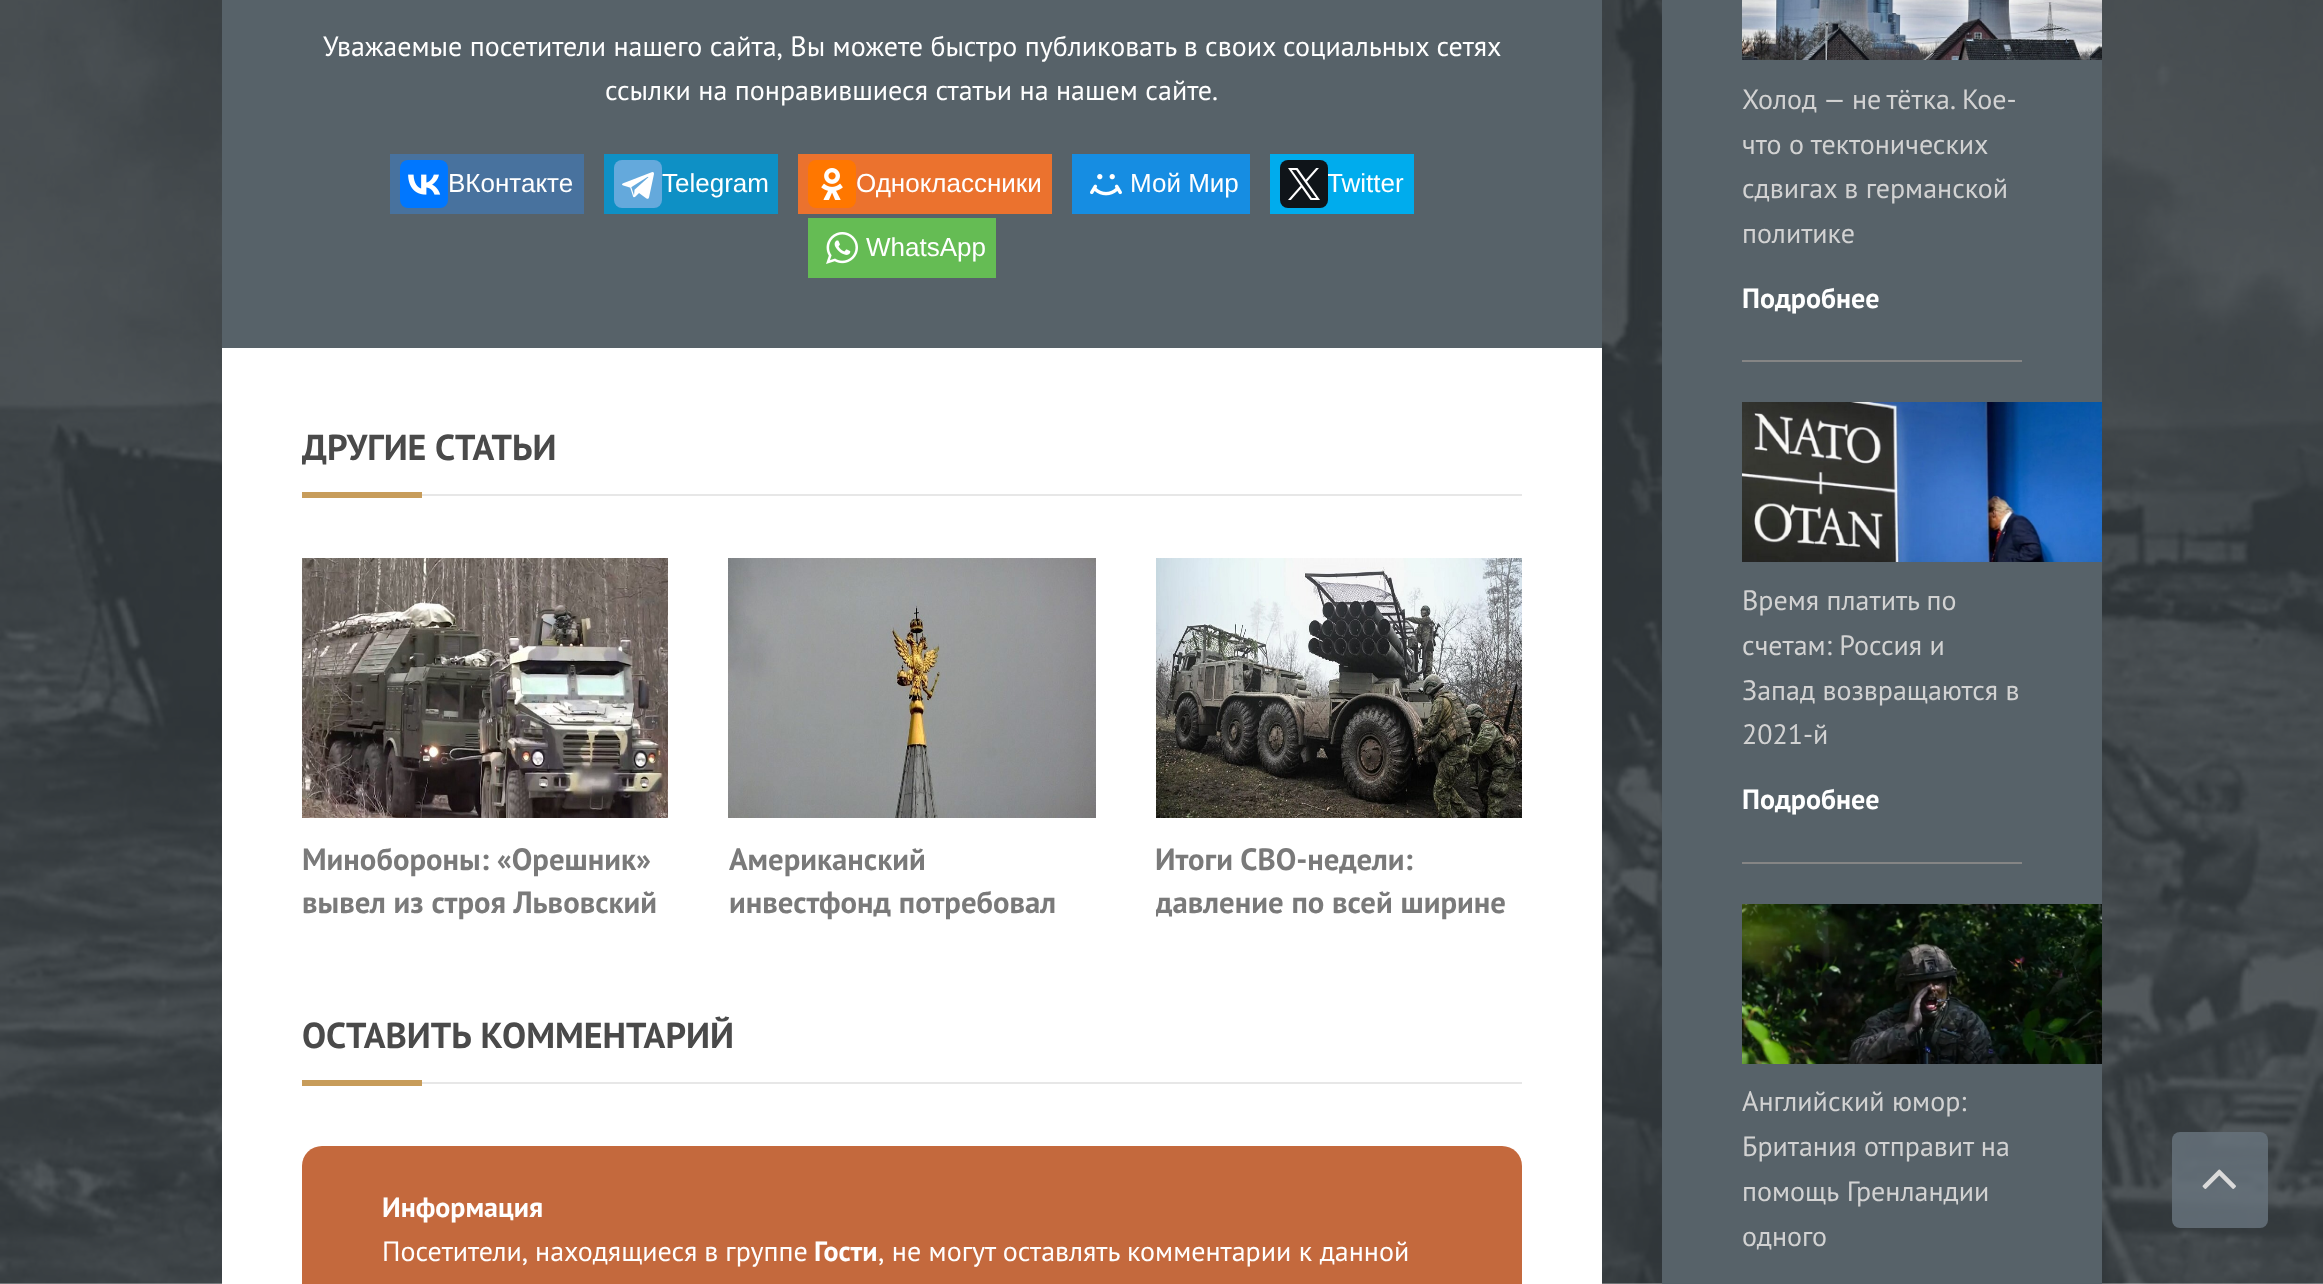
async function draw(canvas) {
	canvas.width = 2323;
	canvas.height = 1284;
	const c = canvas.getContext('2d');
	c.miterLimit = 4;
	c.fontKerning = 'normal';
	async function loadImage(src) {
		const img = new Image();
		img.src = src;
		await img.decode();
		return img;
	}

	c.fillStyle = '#fff';
	c.fillRect(0, 0, 2323, 1284);
	c.drawImage(await loadImage('img1.png'), 0, 0, 2323, 1284);
	c.fillStyle = '#576269';
	c.fillRect(222, 0, 1380, 348);
	c.font = '28px PT Sans';
	c.fillStyle = '#fff';
	c.fillText('Уважаемые посетители нашего сайта, Вы можете быстро публиковать в своих социальных сетях', 323, 56);
	c.fillText('ссылки на понравившиеся статьи на нашем сайте.', 605, 100);
	c.fillStyle = '#48729e';
	c.fillRect(390, 154, 194, 60);
	c.fillStyle = '#07f';
	c.beginPath();
	c.roundRect(400, 160, 48, 48, 8);
	c.fill();
	c.drawImage(await loadImage('img2.png'), 408, 174, 33, 21);
	c.font = '26px Liberation Sans';
	c.fillStyle = '#fff';
	c.fillText('ВКонтакте', 448, 192);
	c.fillStyle = '#0e90c5';
	c.fillRect(604, 154, 174, 60);
	c.fillStyle = '#64a9dc';
	c.beginPath();
	c.roundRect(614, 160, 48, 48, 8);
	c.fill();
	c.drawImage(await loadImage('img3.png'), 622, 172, 32, 27);
	c.fillStyle = '#fff';
	c.fillText('Telegram', 662, 192);
	c.fillStyle = '#eb722e';
	c.fillRect(798, 154, 254, 60);
	c.fillStyle = '#f70';
	c.beginPath();
	c.roundRect(808, 160, 48, 48, 8);
	c.fill();
	c.drawImage(await loadImage('img4.png'), 821, 168, 22, 32);
	c.fillStyle = '#fff';
	c.fillText('Одноклассники', 856, 192);
	c.fillStyle = '#168de2';
	c.fillRect(1072, 154, 178, 60);
	c.drawImage(await loadImage('img5.png'), 1090, 174, 32, 22);
	c.fillStyle = '#fff';
	c.fillText('Мой Мир', 1130, 192);
	c.fillStyle = '#00aced';
	c.fillRect(1270, 154, 144, 60);
	c.fillStyle = '#fff';
	c.fillText('Twitter', 1327, 192);
	c.fillStyle = '#0f1419';
	c.beginPath();
	c.roundRect(1280, 160, 48, 48, 8);
	c.fill();
	c.drawImage(await loadImage('img6.png'), 1288, 168, 32, 32);
	c.fillStyle = '#65bc54';
	c.fillRect(808, 218, 188, 60);
	c.drawImage(await loadImage('img7.png'), 826, 232, 32, 32);
	c.fillStyle = '#fff';
	c.fillText('WhatsApp', 866, 256);
	c.fillRect(222, 348, 1380, 936);
	c.fillStyle = '#e7e7e7';
	c.fillRect(422, 494, 1100, 2);
	c.font = 'bold 36px PT Sans';
	c.fillStyle = '#4a4a4a';
	c.fillText('ДРУГИЕ СТАТЬИ', 302, 460);
	c.fillStyle = '#c79c5a';
	c.fillRect(302, 492, 120, 6);
	c.drawImage(await loadImage('img8.png'), 302, 558, 366, 260);
	c.font = 'bold 30.75px PT Sans';
	c.fillStyle = '#7a7a7a';
	c.fillText('Минобороны: «Орешник»', 302, 870);
	c.fillText('вывел из строя Львовский', 302, 913);
	c.drawImage(await loadImage('img9.png'), 728, 558, 368, 260);
	c.fillText('Американский', 729, 870);
	c.fillText('инвестфонд потребовал', 729, 913);
	c.drawImage(await loadImage('img10.png'), 1156, 558, 366, 260);
	c.fillText('Итоги СВО-недели:', 1155, 870);
	c.save();
	c.beginPath();
	c.rect(1156, 838, 366, 84);
	c.clip();
	c.fillText('давление по всей ширине', 1155, 913);
	c.restore();
	c.fillStyle = '#e7e7e7';
	c.fillRect(422, 1082, 1100, 2);
	c.wordSpacing = '1px';
	c.font = 'bold 36px PT Sans';
	c.fillStyle = '#4a4a4a';
	c.fillText('ОСТАВИТЬ КОММЕНТАРИЙ', 302, 1048);
	c.fillStyle = '#c79c5a';
	c.fillRect(302, 1080, 120, 6);
	c.fillStyle = '#c4693d';
	c.beginPath();
	c.roundRect(302, 1146, 1220, 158, 20);
	c.fill();
	c.wordSpacing = '0px';
	c.font = 'bold 28px PT Sans';
	c.fillStyle = '#fff';
	c.fillText('Информация', 382, 1217);
	c.wordSpacing = '-0.5px';
	c.font = '28px PT Sans';
	c.fillText('Посетители, находящиеся в группе', 382, 1261);
	c.wordSpacing = '0px';
	c.font = 'bold 28px PT Sans';
	c.fillText('Гости', 814, 1261);
	c.font = '28px PT Sans';
	c.fillText(', не могут оставлять комментарии к данной', 878, 1261);
	c.fillStyle = '#576269';
	c.fillRect(1662, 0, 440, 1284);
	c.fillStyle = '#858585';
	c.fillRect(1742, 360, 280, 2);
	c.drawImage(await loadImage('img11.png'), 1742, 0, 360, 60);
	c.wordSpacing = '-1.5px';
	c.fillStyle = '#d2d2d2';
	c.fillText('Холод — не тётка. Кое-', 1742, 109);
	c.wordSpacing = '0px';
	for (const [text, x, y] of [
		['что о тектонических', 1742, 154],
		['сдвигах в германской', 1742, 198],
		['политике', 1742, 243],
	]) {
		c.fillText(text, x, y);
	}
	c.font = 'bold 28px PT Sans';
	c.fillStyle = '#fff';
	c.fillText('Подробнее', 1742, 308);
	c.fillStyle = '#858585';
	c.fillRect(1742, 862, 280, 2);
	c.drawImage(await loadImage('img12.png'), 1742, 402, 360, 160);
	c.font = '28px PT Sans';
	c.fillStyle = '#d2d2d2';
	for (const [text, x, y] of [
		['Время платить по', 1742, 610],
		['счетам: Россия и', 1742, 655],
		['Запад возвращаются в', 1742, 700],
		['2021-й', 1742, 744],
	]) {
		c.fillText(text, x, y);
	}
	c.font = 'bold 28px PT Sans';
	c.fillStyle = '#fff';
	c.fillText('Подробнее', 1742, 809);
	c.drawImage(await loadImage('img13.png'), 1742, 904, 360, 160);
	c.font = '28px PT Sans';
	c.fillStyle = '#d2d2d2';
	c.fillText('Английский юмор:', 1742, 1111);
	c.fillText('Британия отправит на', 1742, 1156);
	c.wordSpacing = '1px';
	c.fillText('помощь Гренландии', 1742, 1201);
	c.wordSpacing = '0px';
	c.fillText('одного', 1742, 1246);
	c.fillStyle = '#66727bd9';
	c.beginPath();
	c.roundRect(2172, 1132, 96, 96, 8);
	c.fill();
	c.drawImage(await loadImage('img14.png'), 2202, 1169, 34, 20);
}

draw(document.querySelector('canvas'));
